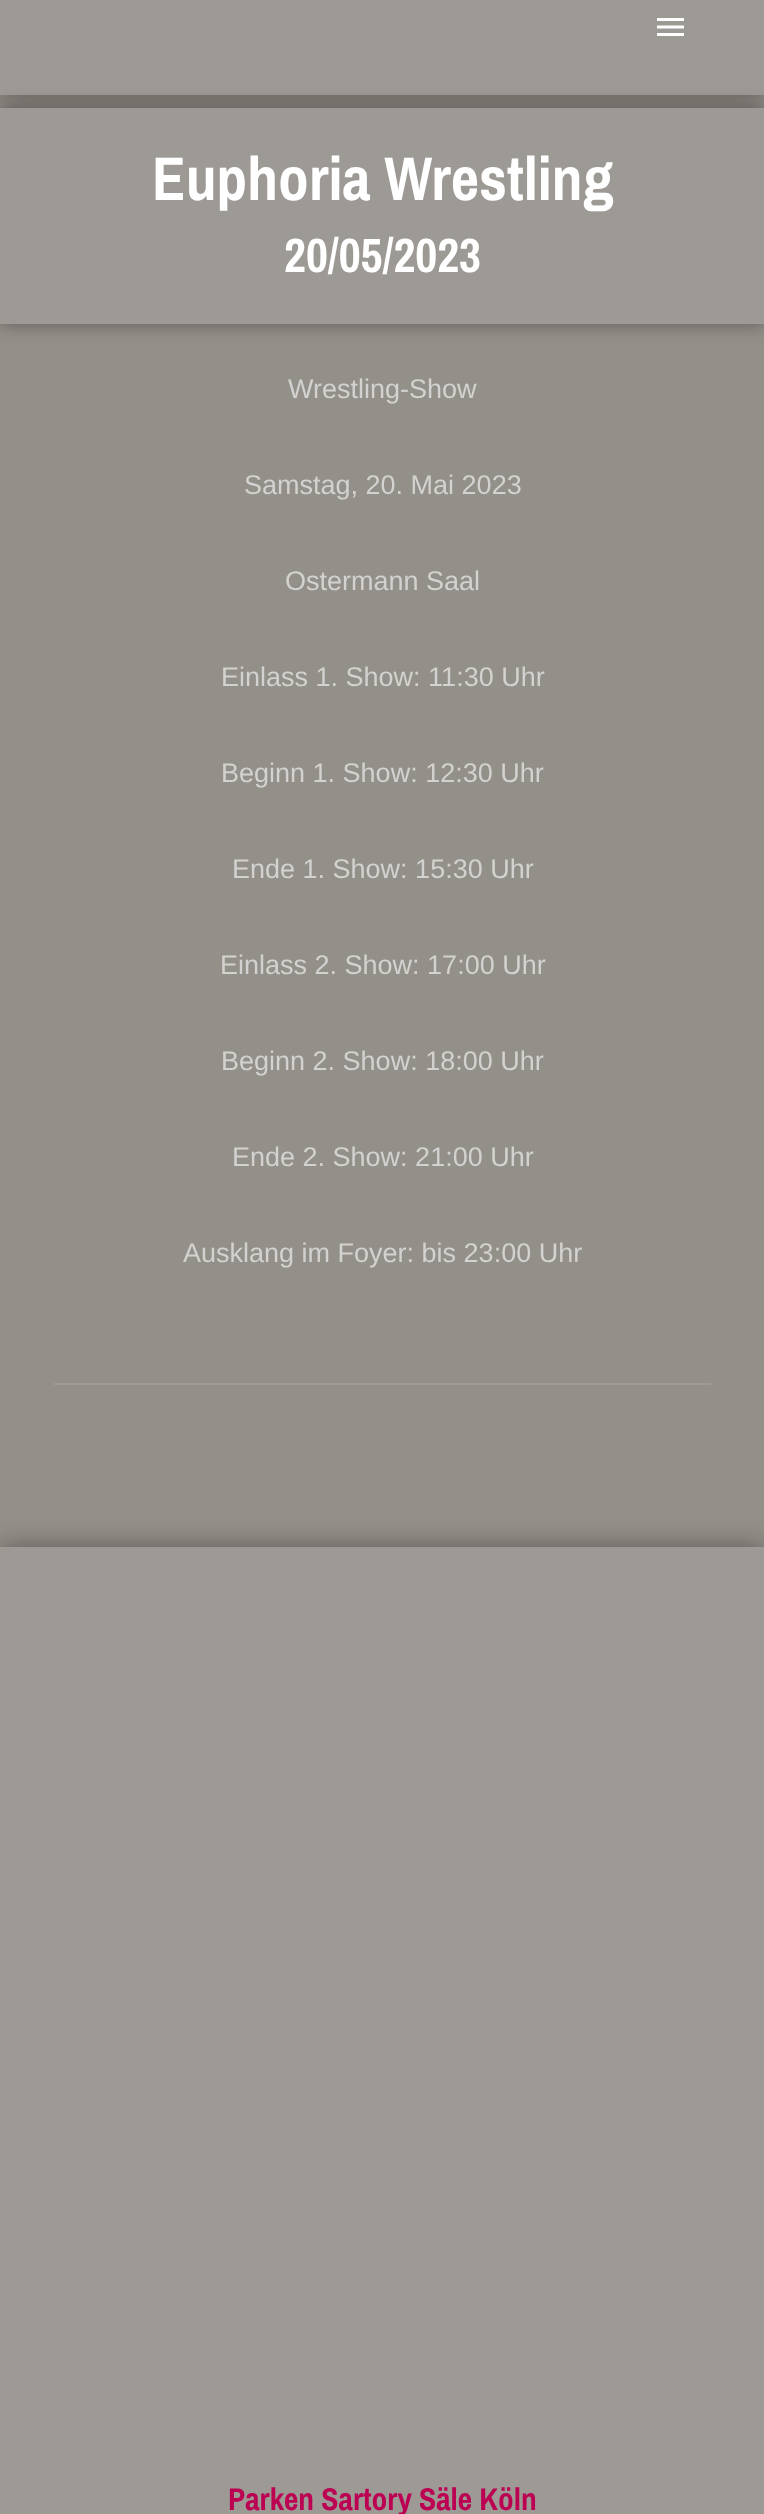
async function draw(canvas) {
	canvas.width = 764;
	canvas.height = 2514;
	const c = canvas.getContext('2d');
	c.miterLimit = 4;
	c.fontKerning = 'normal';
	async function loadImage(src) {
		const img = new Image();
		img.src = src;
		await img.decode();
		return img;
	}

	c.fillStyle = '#938f89';
	c.fillRect(0, 0, 764, 2514);
	c.fillStyle = '#0a080866';
	c.filter = 'blur(13.5px)';
	c.beginPath();
	c.rect(0, 0, 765, 95);
	c.fill();
	c.filter = 'none';
	c.fillStyle = '#9d9994';
	c.fillRect(0, 0, 764, 95);
	c.drawImage(await loadImage('img1.png'), 657, 18, 27, 18);
	c.fillStyle = '#0a080866';
	c.filter = 'blur(9px)';
	c.beginPath();
	c.rect(0, 108, 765, 216);
	c.fill();
	c.filter = 'none';
	c.fillStyle = '#9d9994';
	c.fillRect(0, 108, 764, 216);
	c.font = 'bold 61.5px Archivo Narrow';
	c.fillStyle = '#fff';
	c.fillText('Euphoria Wrestling', 152, 200);
	c.font = 'bold 48px Archivo Narrow';
	c.fillText('20/05/2023', 284, 272);
	c.font = '27px Liberation Sans';
	c.fillStyle = '#d4d2d0';
	for (const [text, x, y] of [
		['Wrestling-Show', 288, 398],
		['Samstag, 20. Mai 2023', 244, 494],
		['Ostermann Saal', 285, 590],
		['Einlass 1. Show: 11:30 Uhr', 221, 686],
		['Beginn 1. Show: 12:30 Uhr', 221, 782],
		['Ende 1. Show: 15:30 Uhr', 232, 878],
		['Einlass 2. Show: 17:00 Uhr', 220, 974],
		['Beginn 2. Show: 18:00 Uhr', 221, 1070],
		['Ende 2. Show: 21:00 Uhr', 232, 1166],
		['Ausklang im Foyer: bis 23:00 Uhr', 183, 1262],
	]) {
		c.fillText(text, x, y);
	}
	c.fillStyle = '#9e9a95';
	c.fillRect(54, 1383, 657, 2);
	c.fillStyle = '#0a080866';
	c.filter = 'blur(13.5px)';
	c.beginPath();
	c.rect(0, 1547, 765, 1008);
	c.fill();
	c.filter = 'none';
	c.fillStyle = '#9d9994';
	c.fillRect(0, 1547, 764, 967);
	c.font = 'bold 31.5px Archivo Narrow';
	c.fillStyle = '#bc0152';
	c.fillText('Parken Sartory Säle Köln', 228, 2510);
}

draw(document.querySelector('canvas'));
